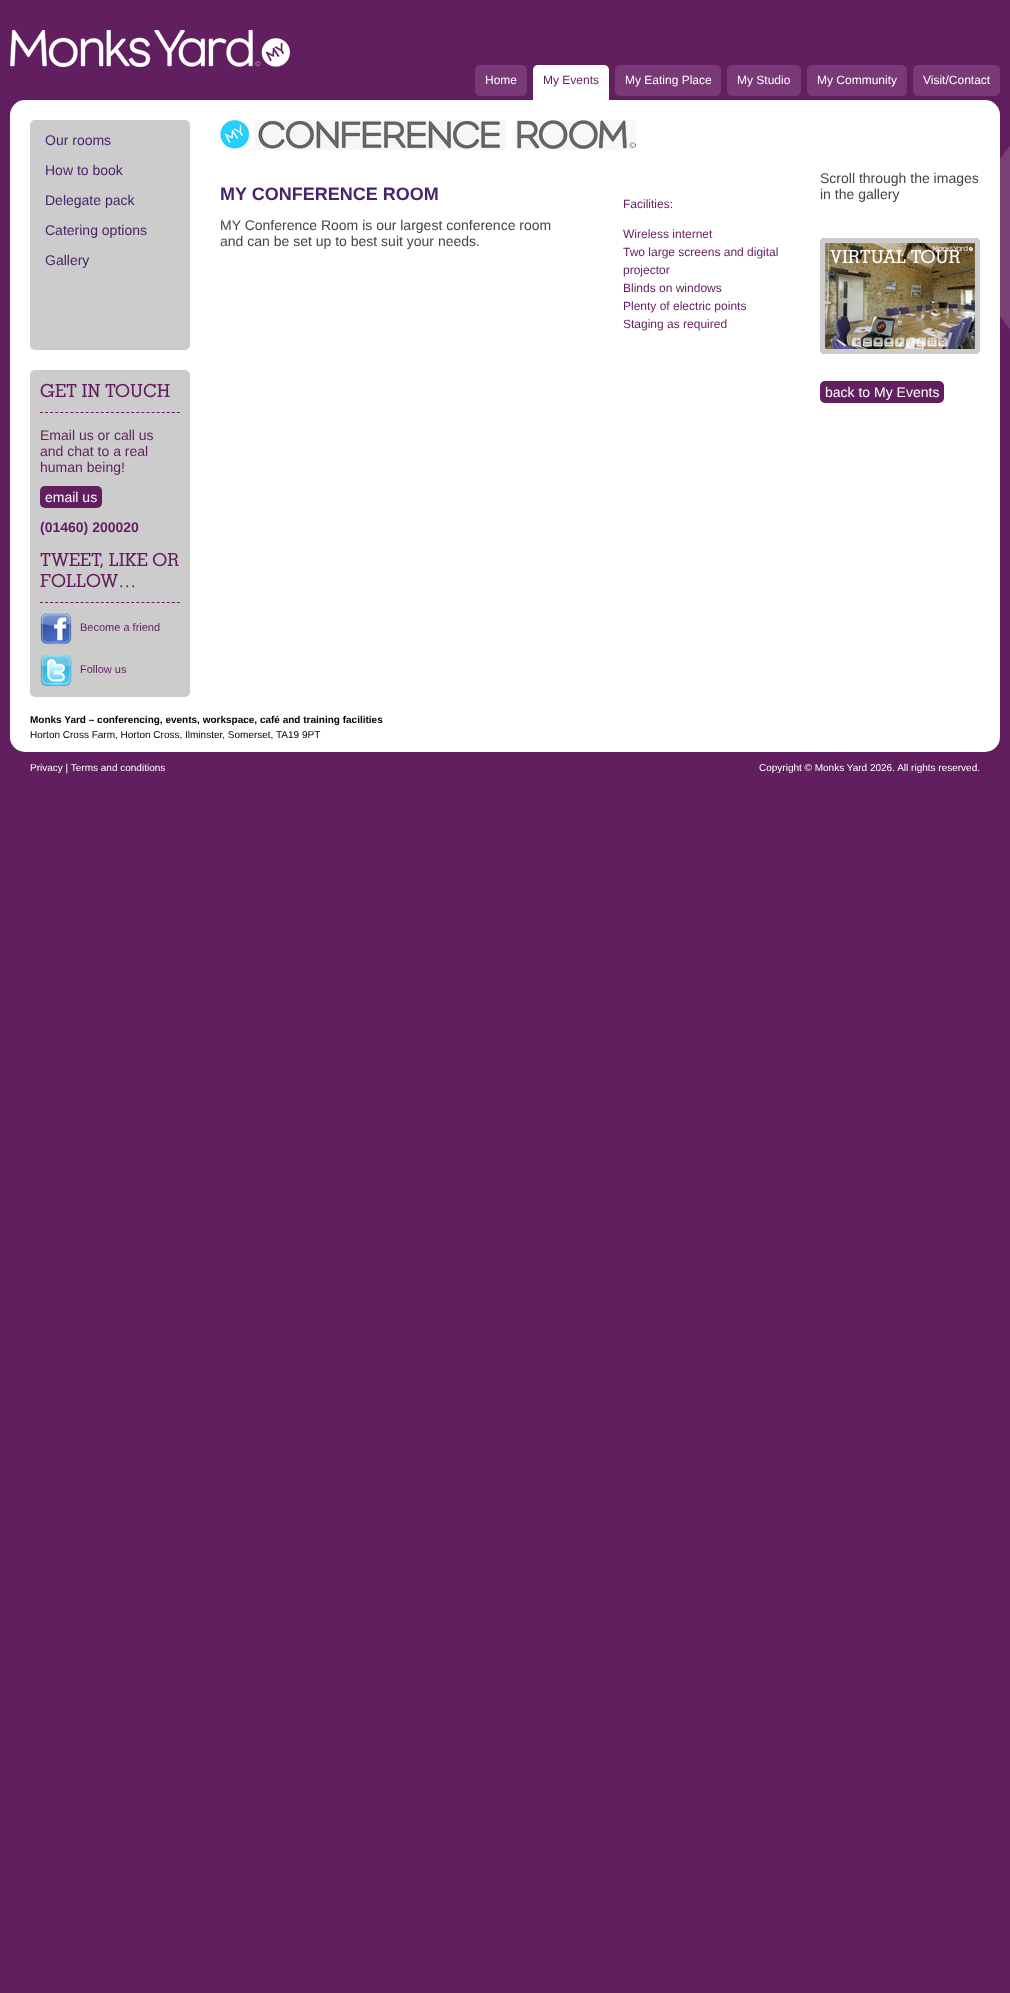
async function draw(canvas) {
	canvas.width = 1010;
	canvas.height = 1993;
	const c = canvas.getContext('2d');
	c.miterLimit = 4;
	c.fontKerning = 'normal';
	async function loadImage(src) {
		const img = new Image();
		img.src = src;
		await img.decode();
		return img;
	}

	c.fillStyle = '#621f5f';
	c.fillRect(0, 0, 1010, 1993);
	c.drawImage(await loadImage('img1.png'), 10, 30, 280, 37);
	c.fillStyle = '#793977';
	c.beginPath();
	c.roundRect(475, 65, 52, 31, 5);
	c.fill();
	c.font = '12px Liberation Sans';
	c.fillStyle = '#fff';
	c.fillText('Home', 485, 84);
	c.beginPath();
	c.roundRect(533, 65, 76, 53, 5);
	c.fill();
	c.fillStyle = '#621c5f';
	c.fillText('My Events', 543, 84);
	c.fillStyle = '#793977';
	c.beginPath();
	c.roundRect(615, 65, 106, 31, 5);
	c.fill();
	c.fillStyle = '#fff';
	c.fillText('My Eating Place', 625, 84);
	c.fillStyle = '#793977';
	c.beginPath();
	c.roundRect(727, 65, 74, 31, 5);
	c.fill();
	c.fillStyle = '#fff';
	c.fillText('My Studio', 737, 84);
	c.fillStyle = '#793977';
	c.beginPath();
	c.roundRect(807, 65, 100, 31, 5);
	c.fill();
	c.fillStyle = '#fff';
	c.fillText('My Community', 817, 84);
	c.fillStyle = '#793977';
	c.beginPath();
	c.roundRect(913, 65, 87, 31, 5);
	c.fill();
	c.fillStyle = '#fff';
	c.fillText('Visit/Contact', 923, 84);
	c.beginPath();
	c.roundRect(10, 100, 990, 652, 15);
	c.fill();
	c.fillStyle = '#ccc';
	c.beginPath();
	c.roundRect(30, 120, 160, 230, 5);
	c.fill();
	c.font = '14px Liberation Sans';
	c.fillStyle = '#46256a';
	for (const [text, x, y] of [
		['Our rooms', 45, 145],
		['How to book', 45, 175],
		['Delegate pack', 45, 205],
		['Catering options', 45, 235],
		['Gallery', 45, 265],
	]) {
		c.fillText(text, x, y);
	}
	c.fillStyle = '#ccc';
	c.beginPath();
	c.roundRect(30, 370, 160, 327, 5);
	c.fill();
	c.beginPath();
	c.moveTo(40, 412.5);
	c.lineTo(180, 412.5);
	c.strokeStyle = '#621f5f';
	c.setLineDash([3, 2.07]);
	c.stroke();
	c.font = '500 18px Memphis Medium';
	c.fillStyle = '#621c5f';
	c.fillText('GET IN TOUCH', 40, 397);
	c.font = '14px Liberation Sans';
	for (const [text, x, y] of [
		['Email us or call us', 40, 440],
		['and chat to a real', 40, 456],
		['human being!', 40, 472],
	]) {
		c.fillText(text, x, y);
	}
	c.fillStyle = '#621f5f';
	c.beginPath();
	c.roundRect(40, 486, 62, 22, 5);
	c.fill();
	c.fillStyle = '#fff';
	c.fillText('email us', 45, 502);
	c.font = 'bold 14px Liberation Sans';
	c.fillStyle = '#621c5f';
	c.fillText('(01460) 200020', 40, 532);
	c.beginPath();
	c.moveTo(40, 602.5);
	c.lineTo(180, 602.5);
	c.stroke();
	c.font = '500 18px Memphis Medium';
	c.fillText('TWEET, LIKE OR', 40, 566);
	c.fillText('FOLLOW…', 40, 587);
	c.drawImage(await loadImage('img2.png'), 40, 613, 32, 32);
	c.font = '11px Liberation Sans';
	c.fillText('Become a friend', 80, 631);
	c.drawImage(await loadImage('img3.png'), 40, 655, 32, 32);
	c.fillText('Follow us', 80, 673);
	c.drawImage(await loadImage('img4.png'), 220, 120, 416, 30);
	c.font = 'bold 18px Liberation Sans';
	c.fillStyle = '#46256a';
	c.fillText('MY CONFERENCE ROOM', 220, 200);
	c.font = '14px Liberation Sans';
	c.fillStyle = '#444';
	c.fillText('MY Conference Room is our largest conference room', 220, 230);
	c.fillText('and can be set up to best suit your needs.', 220, 246);
	c.font = '12px Liberation Sans';
	c.fillStyle = '#621c5f';
	for (const [text, x, y] of [
		['Facilities:', 623, 208],
		['Wireless internet', 623, 238],
		['Two large screens and digital', 623, 256],
		['projector', 623, 274],
		['Blinds on windows', 623, 292],
		['Plenty of electric points', 623, 310],
		['Staging as required', 623, 328],
	]) {
		c.fillText(text, x, y);
	}
	c.font = '14px Liberation Sans';
	c.fillStyle = '#444';
	c.fillText('Scroll through the images', 820, 183);
	c.fillText('in the gallery', 820, 199);
	c.drawImage(await loadImage('img5.png'), 820, 238, 160, 116);
	c.beginPath();
	c.roundRect(822.5, 240.5, 155, 111, 2.5);
	c.strokeStyle = '#ccc';
	c.lineWidth = 5;
	c.setLineDash([]);
	c.stroke();
	c.font = '500 18px Memphis Medium';
	c.fillStyle = '#fff';
	c.fillText('VIRTUAL TOUR', 830, 263);
	c.fillStyle = '#621f5f';
	c.beginPath();
	c.roundRect(820, 381, 124, 22, 5);
	c.fill();
	c.font = '14px Liberation Sans';
	c.fillStyle = '#fff';
	c.fillText('back to My Events', 825, 397);
	c.font = 'bold 10px Liberation Sans';
	c.fillStyle = '#000';
	c.fillText('Monks Yard – conferencing, events, workspace, café and training facilities', 30, 723);
	c.font = '10px Liberation Sans';
	c.fillText('Horton Cross Farm, Horton Cross, Ilminster, Somerset, TA19 9PT', 30, 738);
	c.drawImage(await loadImage('img6.png'), 1000, 146, 10, 183);
	c.fillStyle = '#fff';
	c.fillText('Privacy | Terms and conditions', 30, 771);
	c.fillText('Copyright © Monks Yard 2026. All rights reserved.', 759, 771);
}

draw(document.querySelector('canvas'));
